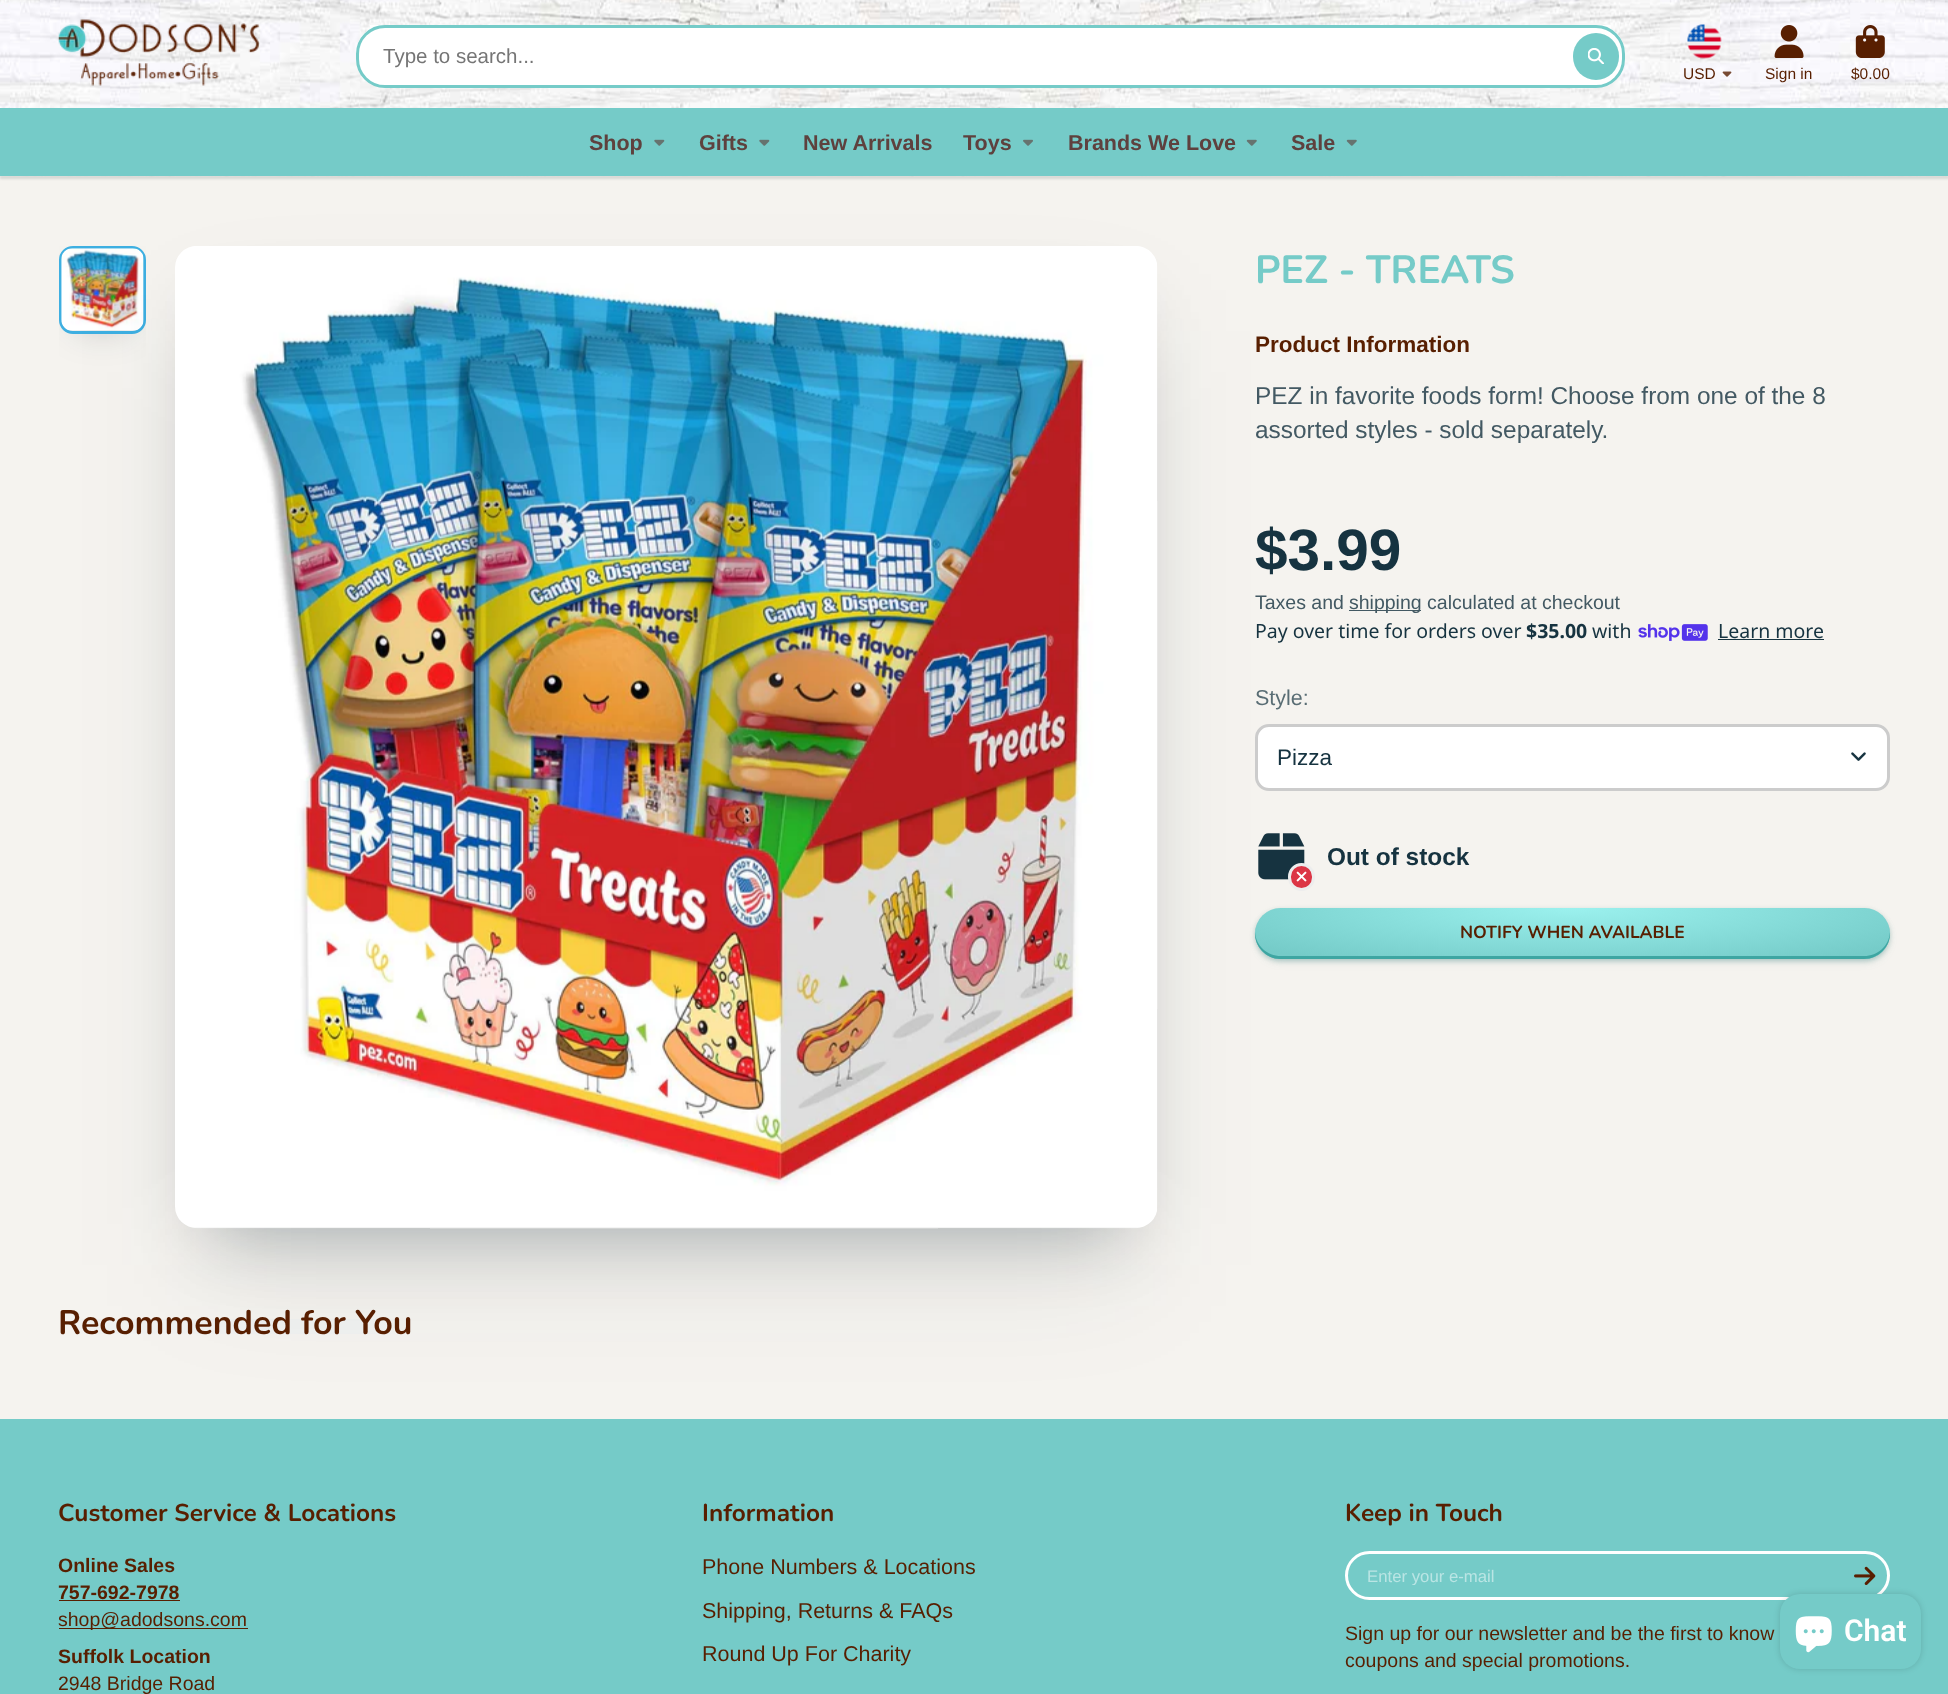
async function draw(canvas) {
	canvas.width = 1948;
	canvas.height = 1694;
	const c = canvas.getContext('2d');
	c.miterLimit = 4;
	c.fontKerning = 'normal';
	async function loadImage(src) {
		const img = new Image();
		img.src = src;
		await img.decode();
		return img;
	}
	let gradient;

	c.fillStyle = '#f5f3ef';
	c.fillRect(0, 0, 1948, 1694);
	c.fillStyle = '#0b191c1f';
	c.filter = 'blur(1px)';
	c.beginPath();
	c.rect(0, 3, 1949, 176);
	c.fill();
	c.filter = 'none';
	c.save();
	c.beginPath();
	c.rect(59, 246, 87, 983);
	c.clip();
	c.fillStyle = '#0f242d4d';
	c.filter = 'blur(19.5px)';
	c.beginPath();
	c.rect(79, 275, 47, 49);
	c.fill();
	c.filter = 'none';
	c.restore();
	c.beginPath();
	c.roundRect(60.5, 247.5, 84, 85, 12.5);
	c.strokeStyle = '#3eafe1';
	c.lineWidth = 3;
	c.stroke();
	c.drawImage(await loadImage('img12.png'), 61, 248, 83, 83);
	gradient = c.createLinearGradient(50, 1326, 423, 1326);
	gradient.addColorStop(0, '#f5f3ef');
	gradient.addColorStop(0.15, '#f0f1f0');
	gradient.addColorStop(0.85, '#f0f1f0');
	gradient.addColorStop(1, '#f5f3ef');
	c.fillStyle = gradient;
	c.fillRect(78, 1319, 317, 15);
	c.fillStyle = '#75cbc8';
	c.fillRect(0, 1419, 1948, 275);
	c.fillStyle = '#0f242d1a';
	c.filter = 'blur(61px)';
	c.beginPath();
	c.rect(199, 331, 935, 934);
	c.fill();
	c.filter = 'none';
	c.drawImage(await loadImage('img1.png'), 0, 0, 1948, 177);
	c.drawImage(await loadImage('img2.png'), 58, 19, 201, 67);
	c.fillStyle = '#fff';
	c.beginPath();
	c.roundRect(356, 25, 1269, 56, 28);
	c.fill();
	c.fillRect(370, 25, 1241, 4);
	c.beginPath();
	c.roundRect(357.5, 26.5, 1266, 60, 27.5);
	c.fill();
	c.strokeStyle = '#75cbc8';
	c.stroke();
	c.font = '20.5px Liberation Sans';
	c.fillStyle = '#757575';
	c.fillText('Type to search...', 383, 63);
	c.fillStyle = '#75cbc8';
	c.beginPath();
	c.roundRect(1573, 33, 46, 47, 23);
	c.fill();
	c.drawImage(await loadImage('img3.png'), 1588, 48, 16, 16);
	c.drawImage(await loadImage('img4.png'), 1687, 24, 35, 35);
	c.font = '15.5px Liberation Sans';
	c.fillStyle = '#581f01';
	c.fillText('USD', 1683, 79);
	c.drawImage(await loadImage('img5.png'), 1722, 71, 10, 6);
	c.drawImage(await loadImage('img6.png'), 1774, 25, 30, 33);
	c.fillText('Sign in', 1765, 79);
	c.drawImage(await loadImage('img7.png'), 1855, 25, 30, 33);
	c.fillText('$0.00', 1851, 79);
	c.fillStyle = '#75cbc8';
	c.fillRect(0, 108, 1948, 68);
	c.font = 'bold 21.5px Liberation Sans';
	c.fillStyle = '#5e413e';
	c.fillText('Shop', 589, 150);
	c.drawImage(await loadImage('img8.png'), 654, 139, 11, 7);
	c.fillText('Gifts', 699, 150);
	c.drawImage(await loadImage('img8.png'), 759, 139, 11, 7);
	c.fillText('New Arrivals', 803, 150);
	c.fillText('Toys', 963, 150);
	c.drawImage(await loadImage('img9.png'), 1023, 139, 10, 7);
	c.fillText('Brands We Love', 1068, 150);
	c.drawImage(await loadImage('img10.png'), 1246, 139, 11, 7);
	c.fillText('Sale', 1291, 150);
	c.drawImage(await loadImage('img10.png'), 1346, 139, 11, 7);
	c.fillStyle = '#0f242d4d';
	c.filter = 'blur(36.5px)';
	c.beginPath();
	c.rect(211, 319, 910, 910);
	c.fill();
	c.filter = 'none';
	c.drawImage(await loadImage('img11.png'), 175, 246, 983, 983);
	c.font = 'bold 39.25px Nunito';
	c.fillStyle = '#75cbc8';
	c.fillText('PEZ - TREATS', 1255, 283);
	c.font = 'bold 22.5px Liberation Sans';
	c.fillStyle = '#581f01';
	c.fillText('Product Information', 1255, 352);
	c.font = '24.4px Liberation Sans';
	c.fillStyle = '#435963';
	c.fillText('PEZ in favorite foods form! Choose from one of the 8', 1255, 404);
	c.fillText('assorted styles - sold separately.', 1255, 438);
	c.font = 'bold 58.5px Liberation Sans';
	c.fillStyle = '#163340';
	c.fillText('$3.99', 1255, 570);
	c.font = '19.5px Liberation Sans';
	c.fillStyle = '#435963';
	c.fillText('Taxes and', 1255, 609);
	c.fillRect(1349, 610, 72, 1);
	c.fillText('shipping calculated at checkout', 1349, 609);
	c.font = '19.5px Noto Sans';
	c.fillStyle = '#163340';
	c.fillText('Pay over time for orders over', 1255, 638);
	c.font = 'bold 19.5px Noto Sans';
	c.fillText('$35.00', 1526, 638);
	c.font = '19.5px Noto Sans';
	c.fillText('with', 1592, 638);
	c.drawImage(await loadImage('img13.png'), 1638, 624, 70, 17);
	c.fillText('Learn more', 1718, 638);
	c.fillRect(1718, 639, 106, 1);
	c.font = '21.5px Liberation Sans';
	c.fillStyle = '#596d74';
	c.fillText('Style:', 1255, 705);
	c.fillStyle = '#fff';
	c.beginPath();
	c.roundRect(1256.5, 725.5, 632, 64, 12.5);
	c.fill();
	c.strokeStyle = '#ccc';
	c.stroke();
	c.font = '22.5px Liberation Sans';
	c.fillStyle = '#163340';
	c.fillText('Pizza', 1277, 765);
	c.drawImage(await loadImage('img14.png'), 1851, 752, 15, 9);
	c.drawImage(await loadImage('img15.png'), 1258, 833, 47, 47);
	c.fillStyle = '#dc3545';
	c.beginPath();
	c.roundRect(1289.5, 864.5, 24, 25, 12);
	c.fill();
	c.strokeStyle = '#ededed';
	c.stroke();
	c.drawImage(await loadImage('img16.png'), 1296, 871, 11, 11);
	c.font = 'bold 24.4px Liberation Sans';
	c.fillStyle = '#163340';
	c.fillText('Out of stock', 1327, 865);
	c.fillStyle = '#2e797726';
	c.filter = 'blur(5px)';
	c.beginPath();
	c.roundRect(1258, 915, 630, 46, 23);
	c.fill();
	c.filter = 'none';
	c.fillStyle = '#2e79774d';
	c.filter = 'blur(2.5px)';
	c.beginPath();
	c.roundRect(1255, 910, 635, 51, 25.5);
	c.fill();
	c.filter = 'none';
	c.save();
	c.beginPath();
	c.roundRect(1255, 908, 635, 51, 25.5);
	c.clip();
	c.fillStyle = '#2e797726';
	c.filter = 'blur(5px)';
	c.beginPath();
	c.roundRect(1258, 915, 630, 46, 23);
	c.fill();
	c.filter = 'none';
	c.fillStyle = '#2e79774d';
	c.filter = 'blur(2.5px)';
	c.beginPath();
	c.roundRect(1255, 910, 635, 51, 25.5);
	c.fill();
	c.filter = 'none';
	c.restore();
	gradient = c.createRadialGradient(1573, 5662.39, 0, 1573, 5662.39, 449);
	gradient.addColorStop(0, '#9bf1ee');
	gradient.addColorStop(0.9, '#75cbc8');
	c.fillStyle = gradient;
	c.beginPath();
	c.roundRect(1255, 908, 635, 51, 25.5);
	c.save();
	c.clip();
	c.scale(1, 72 / 449);
	c.fillRect(0, 0, 1948, 10564);
	c.restore();
	c.fillStyle = '#3ea6a2';
	c.beginPath();
	c.moveTo(1255, 932);
	c.bezierCurveTo(1254, 946, 1266, 959, 1280, 959);
	c.lineTo(1864, 959);
	c.bezierCurveTo(1879, 959, 1891, 946, 1890, 932);
	c.bezierCurveTo(1889, 946, 1878, 956, 1864, 956);
	c.lineTo(1281, 956);
	c.bezierCurveTo(1267, 956, 1256, 946, 1255, 932);
	c.closePath();
	c.fill();
	c.font = 'bold 17.5px Nunito';
	c.fillStyle = '#581f01';
	c.fillText('NOTIFY WHEN AVAILABLE', 1460, 938);
	c.font = 'bold 34px Nunito';
	c.fillText('Recommended for You', 58, 1334);
	c.font = 'bold 24.4px Nunito';
	c.fillText('Customer Service & Locations', 58, 1521);
	c.font = 'bold 19.5px Liberation Sans';
	c.fillText('Online Sales', 58, 1572);
	c.fillText('757-692-7978', 58, 1599);
	c.fillRect(59, 1600, 121, 1);
	c.fillRect(59, 1628, 189, 1);
	c.font = '19.5px Liberation Sans';
	c.fillText('shop@adodsons.com', 58, 1626);
	c.font = 'bold 19.5px Liberation Sans';
	c.fillText('Suffolk Location', 58, 1663);
	c.font = '19.5px Liberation Sans';
	c.fillText('2948 Bridge Road', 58, 1690);
	c.font = 'bold 24.4px Nunito';
	c.fillText('Information', 702, 1521);
	c.font = '21.5px Liberation Sans';
	for (const [text, x, y] of [
		['Phone Numbers & Locations', 702, 1574],
		['Shipping, Returns & FAQs', 702, 1618],
		['Round Up For Charity', 702, 1661],
	]) {
		c.fillText(text, x, y);
	}
	c.font = 'bold 24.4px Nunito';
	c.fillText('Keep in Touch', 1345, 1521);
	c.beginPath();
	c.roundRect(1346.5, 1552.5, 542, 46, 23);
	c.strokeStyle = '#fff';
	c.stroke();
	c.save();
	c.beginPath();
	c.rect(1366, 1566, 503, 19);
	c.clip();
	c.font = '16.75px Liberation Sans';
	c.fillStyle = '#bae5e4';
	c.fillText('Enter your e-mail', 1367, 1582);
	c.restore();
	c.drawImage(await loadImage('img17.png'), 1854, 1566, 22, 19);
	c.font = '19.5px Liberation Sans';
	c.fillText('Sign up for our newsletter and be the first to know', 1345, 1640);
	c.fillText('coupons and special promotions.', 1345, 1667);
	c.fillStyle = '#00000026';
	c.filter = 'blur(3px)';
	c.beginPath();
	c.roundRect(1780, 1594, 141, 75, 20);
	c.fill();
	c.filter = 'none';
	c.fillStyle = '#75cbc8';
	c.beginPath();
	c.roundRect(1780, 1594, 141, 75, 20);
	c.fill();
	c.drawImage(await loadImage('img18.png'), 1795, 1616, 37, 37);
	c.font = '600 30px Roboto';
	c.fillStyle = '#fff';
	c.fillText('Chat', 1844, 1641);
}

draw(document.querySelector('canvas'));
